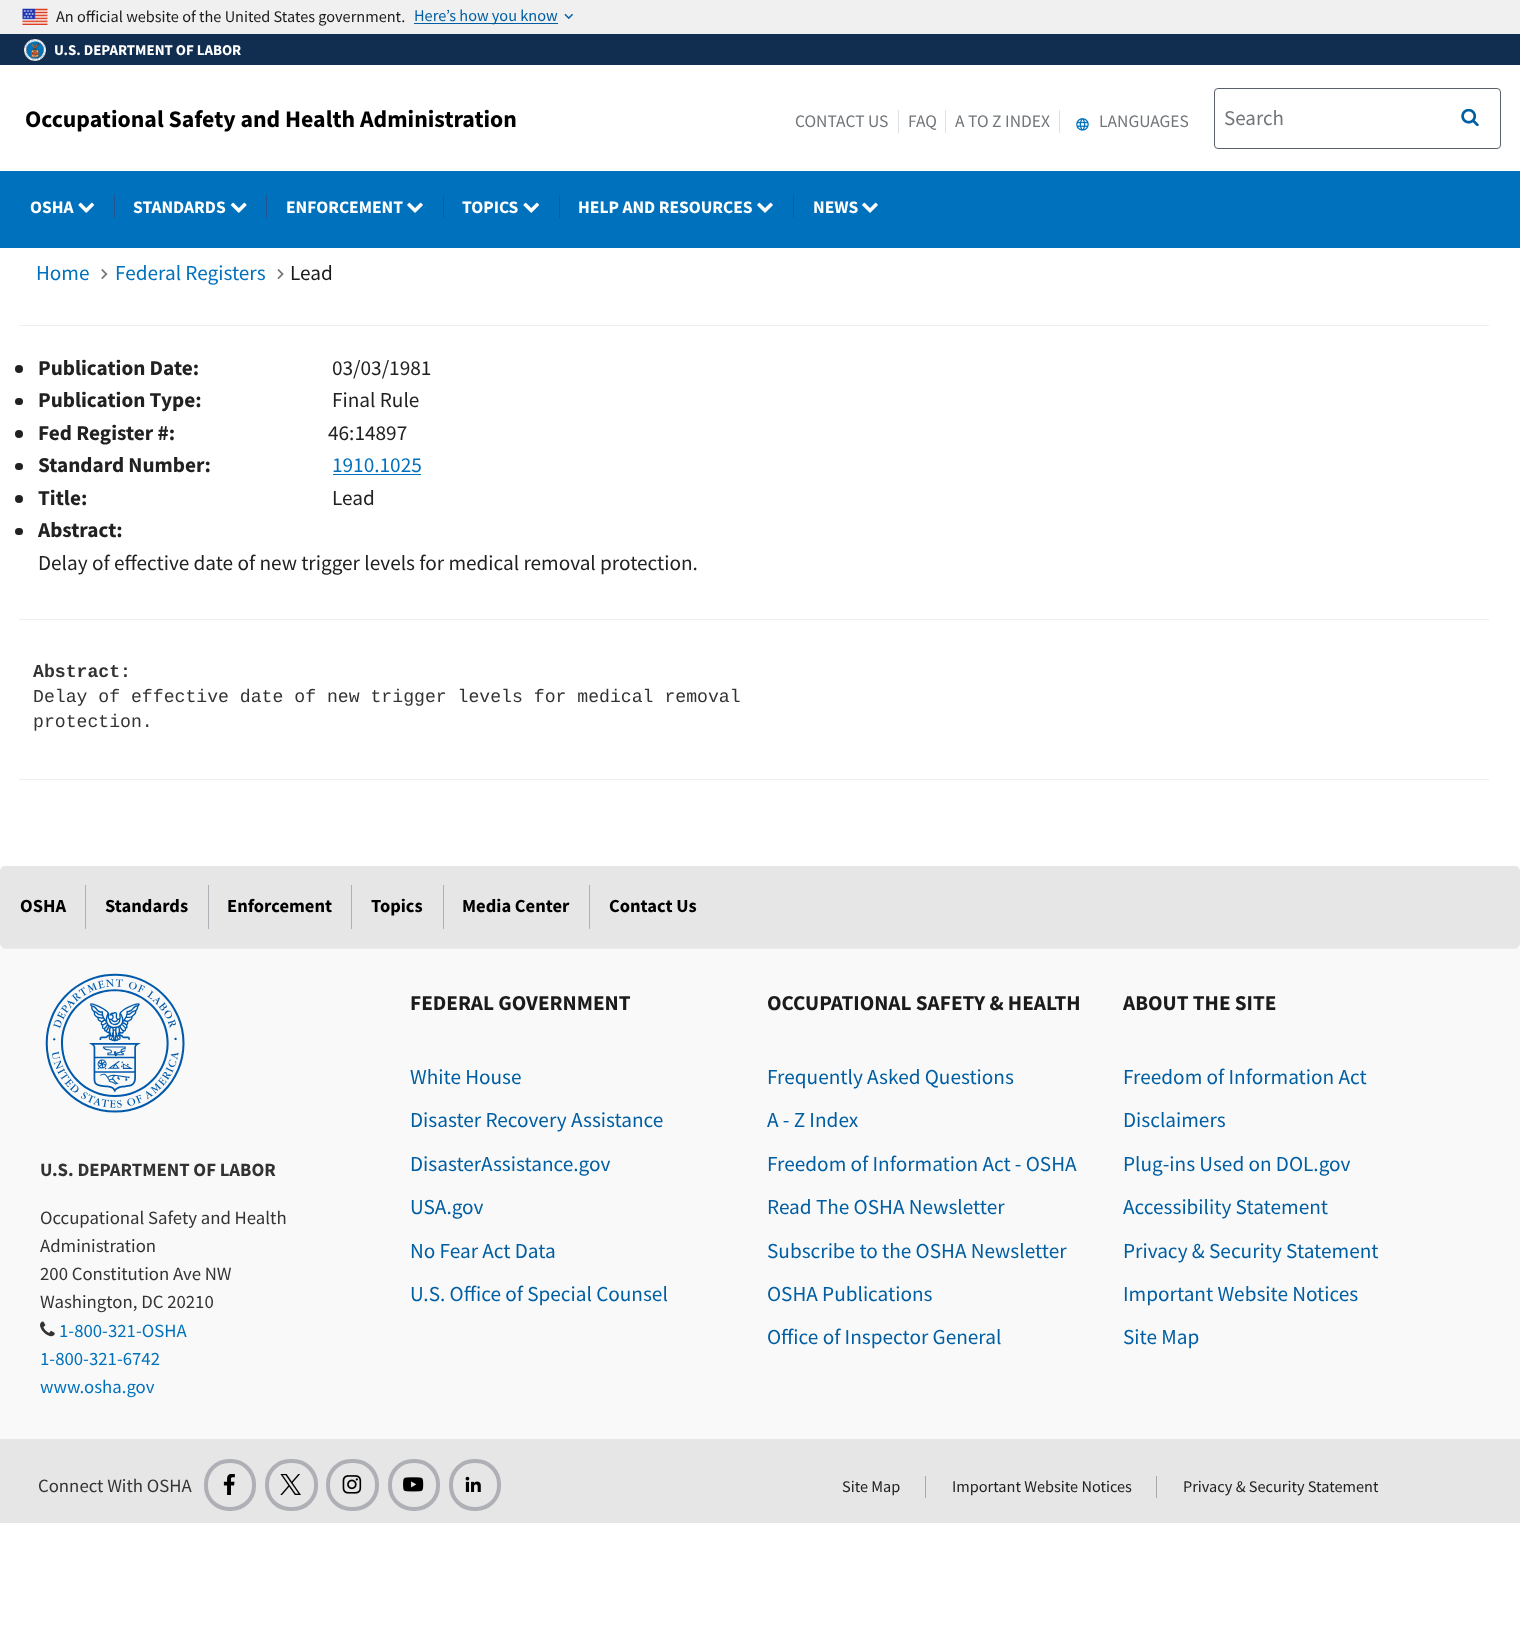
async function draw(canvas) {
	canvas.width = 1520;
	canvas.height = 1638;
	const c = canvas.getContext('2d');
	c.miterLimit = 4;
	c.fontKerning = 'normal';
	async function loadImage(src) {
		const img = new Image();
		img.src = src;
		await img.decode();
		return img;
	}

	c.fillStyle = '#fff';
	c.fillRect(0, 0, 1520, 1638);
	c.fillStyle = '#f0f0f0';
	c.fillRect(0, 0, 1520, 34);
	c.drawImage(await loadImage('img1.png'), 22, 8, 26, 17);
	c.font = '16.25px Source Sans Pro';
	c.fillStyle = '#1b1b1b';
	c.fillText('An official website of the United States government.', 56, 22);
	c.fillStyle = '#005ea2';
	c.fillRect(414, 23, 144, 1);
	c.font = '16.25px "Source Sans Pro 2"';
	c.fillText('Here’s how you know', 414, 21);
	c.drawImage(await loadImage('img2.png'), 564, 13, 9, 7);
	c.fillStyle = '#112e51';
	c.fillRect(0, 34, 1520, 31);
	c.drawImage(await loadImage('img3.png'), 23, 38, 24, 24);
	c.font = 'bold 14.9px Source Sans Pro';
	c.fillStyle = '#fff';
	c.fillText('U.S. DEPARTMENT OF LABOR', 54, 55);
	c.font = 'bold 23.8px "Source Sans Pro 2"';
	c.fillStyle = '#000';
	c.fillText('Occupational Safety and Health Administration', 25, 127);
	c.font = '17.5px "Source Sans Pro 2"';
	c.fillStyle = '#71767a';
	c.fillText('CONTACT US', 795, 127);
	c.fillStyle = '#dfe1e2';
	c.fillRect(898, 110, 1, 23);
	c.fillStyle = '#71767a';
	c.fillText('FAQ', 908, 127);
	c.fillStyle = '#dfe1e2';
	c.fillRect(945, 110, 1, 23);
	c.fillStyle = '#71767a';
	c.fillText('A TO Z INDEX', 955, 127);
	c.fillStyle = '#dfe1e2';
	c.fillRect(1059, 110, 1, 23);
	c.drawImage(await loadImage('img4.png'), 1076, 118, 13, 13);
	c.fillStyle = '#71767a';
	c.fillText('LANGUAGES', 1099, 127);
	c.beginPath();
	c.roundRect(1214.5, 88.5, 286, 60, 3.5);
	c.strokeStyle = '#5b616b';
	c.stroke();
	c.font = '21px "Source Sans Pro 2"';
	c.fillText('Search', 1224, 125);
	c.drawImage(await loadImage('img5.png'), 1461, 109, 18, 17);
	c.fillStyle = '#0071bc';
	c.fillRect(0, 171, 1520, 77);
	c.font = 'bold 17.5px Source Sans Pro';
	c.fillStyle = '#fff';
	c.fillText('OSHA', 30, 213);
	c.drawImage(await loadImage('img6.png'), 78, 202, 17, 11);
	c.fillStyle = '#205493';
	c.fillRect(114, 195, 1, 23);
	c.fillStyle = '#fff';
	c.fillText('STANDARDS', 133, 213);
	c.drawImage(await loadImage('img7.png'), 230, 202, 17, 11);
	c.fillStyle = '#205493';
	c.fillRect(266, 195, 1, 23);
	c.fillStyle = '#fff';
	c.fillText('ENFORCEMENT', 286, 213);
	c.drawImage(await loadImage('img8.png'), 407, 202, 16, 11);
	c.fillStyle = '#205493';
	c.fillRect(443, 195, 1, 23);
	c.fillStyle = '#fff';
	c.fillText('TOPICS', 462, 213);
	c.drawImage(await loadImage('img6.png'), 523, 202, 17, 11);
	c.fillStyle = '#205493';
	c.fillRect(559, 195, 1, 23);
	c.fillStyle = '#fff';
	c.fillText('HELP AND RESOURCES', 578, 213);
	c.drawImage(await loadImage('img8.png'), 757, 202, 16, 11);
	c.fillStyle = '#205493';
	c.fillRect(793, 195, 1, 23);
	c.fillStyle = '#fff';
	c.fillText('NEWS', 813, 213);
	c.drawImage(await loadImage('img8.png'), 862, 202, 16, 11);
	c.font = '21.25px "Source Sans Pro 2"';
	c.fillStyle = '#0071bc';
	c.fillText('Home', 36, 280);
	c.drawImage(await loadImage('img9.png'), 101, 269, 7, 11);
	c.fillText('Federal Registers', 115, 280);
	c.drawImage(await loadImage('img10.png'), 277, 269, 7, 11);
	c.fillStyle = '#1b1b1b';
	c.fillText('Lead', 290, 280);
	c.fillStyle = '#eee';
	c.fillRect(19, 325, 1470, 1);
	c.fillRect(19, 619, 1470, 1);
	c.fillStyle = '#212121';
	c.beginPath();
	c.arc(19, 369, 4, 0, 2 * Math.PI);
	c.fill();
	c.font = 'bold 21.25px Source Sans Pro';
	c.fillText('Publication Date:', 38, 375);
	c.font = '21.25px "Source Sans Pro 2"';
	c.fillText('03/03/1981', 332, 375);
	c.beginPath();
	c.roundRect(15, 398, 8, 7, 3.5);
	c.fill();
	c.font = 'bold 21.25px Source Sans Pro';
	c.fillText('Publication Type:', 38, 407);
	c.font = '21.25px "Source Sans Pro 2"';
	c.fillText('Final Rule', 332, 407);
	c.beginPath();
	c.arc(19, 434, 4, 0, 2 * Math.PI);
	c.fill();
	c.font = 'bold 21.25px Source Sans Pro';
	c.fillText('Fed Register #:', 38, 440);
	c.font = '21.25px "Source Sans Pro 2"';
	c.fillText('46:14897', 328, 440);
	c.beginPath();
	c.roundRect(15, 463, 8, 7, 3.5);
	c.fill();
	c.font = 'bold 21.25px Source Sans Pro';
	c.fillText('Standard Number:', 38, 472);
	c.font = '21.25px "Source Sans Pro 2"';
	c.fillStyle = '#0071bc';
	c.fillText('1910.1025', 332, 472);
	c.fillRect(333, 474, 88, 1);
	c.fillStyle = '#212121';
	c.beginPath();
	c.arc(19, 499, 4, 0, 2 * Math.PI);
	c.fill();
	c.font = 'bold 21.25px Source Sans Pro';
	c.fillText('Title:', 38, 505);
	c.font = '21.25px "Source Sans Pro 2"';
	c.fillText('Lead', 332, 505);
	c.beginPath();
	c.roundRect(15, 528, 8, 7, 3.5);
	c.fill();
	c.font = 'bold 21.25px Source Sans Pro';
	c.fillText('Abstract:', 38, 537);
	c.font = '21.25px "Source Sans Pro 2"';
	c.fillText('Delay of effective date of new trigger levels for medical removal protection.', 38, 570);
	c.font = 'bold 18.15px Liberation Mono';
	c.fillStyle = '#333';
	c.fillText('Abstract:', 33, 677);
	c.font = '18.15px Liberation Mono';
	c.fillText('Delay of effective date of new trigger levels for medical removal', 33, 702);
	c.fillText('protection.', 33, 727);
	c.fillStyle = '#eee';
	c.fillRect(19, 779, 1470, 1);
	c.fillStyle = '#f9f9f9';
	c.fillRect(0, 948, 1520, 491);
	c.fillStyle = '#0000000d';
	c.filter = 'blur(0.5px)';
	c.beginPath();
	c.roundRect(0, 868, 1520, 81, 5);
	c.fill();
	c.filter = 'none';
	c.fillStyle = '#e6e6e6';
	c.beginPath();
	c.roundRect(0, 866, 1520, 82, 5);
	c.fill();
	c.font = 'bold 18.5px "Source Sans Pro 2"';
	c.fillStyle = '#000';
	c.fillText('OSHA', 20, 912);
	c.fillStyle = '#aeb0b5';
	c.fillRect(85, 885, 1, 44);
	c.fillStyle = '#000';
	c.fillText('Standards', 105, 912);
	c.fillStyle = '#aeb0b5';
	c.fillRect(208, 885, 1, 44);
	c.fillStyle = '#000';
	c.fillText('Enforcement', 227, 912);
	c.fillStyle = '#aeb0b5';
	c.fillRect(351, 885, 1, 44);
	c.fillStyle = '#000';
	c.fillText('Topics', 371, 912);
	c.fillStyle = '#aeb0b5';
	c.fillRect(443, 885, 1, 44);
	c.fillStyle = '#000';
	c.fillText('Media Center', 462, 912);
	c.fillStyle = '#aeb0b5';
	c.fillRect(589, 885, 1, 44);
	c.fillStyle = '#000';
	c.fillText('Contact Us', 609, 912);
	c.drawImage(await loadImage('img11.png'), 45, 973, 140, 140);
	c.font = 'bold 18.75px Source Sans Pro';
	c.fillStyle = '#333';
	c.fillText('U.S. DEPARTMENT OF LABOR', 40, 1176);
	c.font = '18.75px Source Sans Pro';
	for (const [text, x, y] of [
		['Occupational Safety and Health', 40, 1224],
		['Administration', 40, 1252],
		['200 Constitution Ave NW', 40, 1280],
		['Washington, DC 20210', 40, 1308],
	]) {
		c.fillText(text, x, y);
	}
	c.drawImage(await loadImage('img12.png'), 40, 1321, 15, 16);
	c.fillStyle = '#0071bc';
	for (const [text, x, y] of [
		['1-800-321-OSHA', 59, 1337],
		['1-800-321-6742', 40, 1365],
		['www.osha.gov', 40, 1393],
	]) {
		c.fillText(text, x, y);
	}
	c.font = 'bold 21.25px Source Sans Pro';
	c.fillStyle = '#1b1b1b';
	c.fillText('FEDERAL GOVERNMENT', 410, 1010);
	c.font = '21.25px Source Sans Pro';
	c.fillStyle = '#005ea2';
	for (const [text, x, y] of [
		['White House', 410, 1084],
		['Disaster Recovery Assistance', 410, 1127],
		['DisasterAssistance.gov', 410, 1171],
		['USA.gov', 410, 1214],
		['No Fear Act Data', 410, 1258],
		['U.S. Office of Special Counsel', 410, 1301],
	]) {
		c.fillText(text, x, y);
	}
	c.font = 'bold 21.25px Source Sans Pro';
	c.fillStyle = '#1b1b1b';
	c.fillText('OCCUPATIONAL SAFETY & HEALTH', 767, 1010);
	c.font = '21.25px Source Sans Pro';
	c.fillStyle = '#005ea2';
	for (const [text, x, y] of [
		['Frequently Asked Questions', 767, 1084],
		['A - Z Index', 767, 1127],
		['Freedom of Information Act - OSHA', 767, 1171],
		['Read The OSHA Newsletter', 767, 1214],
		['Subscribe to the OSHA Newsletter', 767, 1258],
		['OSHA Publications', 767, 1301],
		['Office of Inspector General', 767, 1344],
	]) {
		c.fillText(text, x, y);
	}
	c.font = 'bold 21.25px Source Sans Pro';
	c.fillStyle = '#1b1b1b';
	c.fillText('ABOUT THE SITE', 1123, 1010);
	c.font = '21.25px Source Sans Pro';
	c.fillStyle = '#005ea2';
	for (const [text, x, y] of [
		['Freedom of Information Act', 1123, 1084],
		['Disclaimers', 1123, 1127],
		['Plug-ins Used on DOL.gov', 1123, 1171],
		['Accessibility Statement', 1123, 1214],
		['Privacy & Security Statement', 1123, 1258],
		['Important Website Notices', 1123, 1301],
		['Site Map', 1123, 1344],
	]) {
		c.fillText(text, x, y);
	}
	c.fillStyle = '#e6e6e6';
	c.fillRect(0, 1439, 1520, 84);
	c.font = '18.75px Source Sans Pro';
	c.fillStyle = '#333';
	c.fillText('Connect With OSHA', 38, 1492);
	c.beginPath();
	c.roundRect(206, 1461, 48, 48, 23);
	c.strokeStyle = '#aeb0b5';
	c.lineWidth = 4;
	c.stroke();
	c.drawImage(await loadImage('img13.png'), 223, 1474, 12, 21);
	c.beginPath();
	c.roundRect(267, 1461, 49, 48, 23);
	c.stroke();
	c.drawImage(await loadImage('img14.png'), 280, 1474, 21, 21);
	c.beginPath();
	c.roundRect(328, 1461, 49, 48, 23);
	c.stroke();
	c.drawImage(await loadImage('img15.png'), 342, 1475, 20, 19);
	c.beginPath();
	c.roundRect(390, 1461, 48, 48, 23);
	c.stroke();
	c.drawImage(await loadImage('img16.png'), 403, 1477, 21, 15);
	c.beginPath();
	c.roundRect(451, 1461, 48, 48, 23);
	c.stroke();
	c.drawImage(await loadImage('img17.png'), 465, 1476, 16, 16);
	c.font = '16.25px "Source Sans Pro 2"';
	c.fillStyle = '#212121';
	c.fillText('Site Map', 842, 1492);
	c.fillStyle = '#a9a9a9';
	c.fillRect(925, 1476, 1, 22);
	c.fillStyle = '#212121';
	c.fillText('Important Website Notices', 952, 1492);
	c.fillStyle = '#a9a9a9';
	c.fillRect(1156, 1476, 1, 22);
	c.fillStyle = '#212121';
	c.fillText('Privacy & Security Statement', 1183, 1492);
}

draw(document.querySelector('canvas'));
